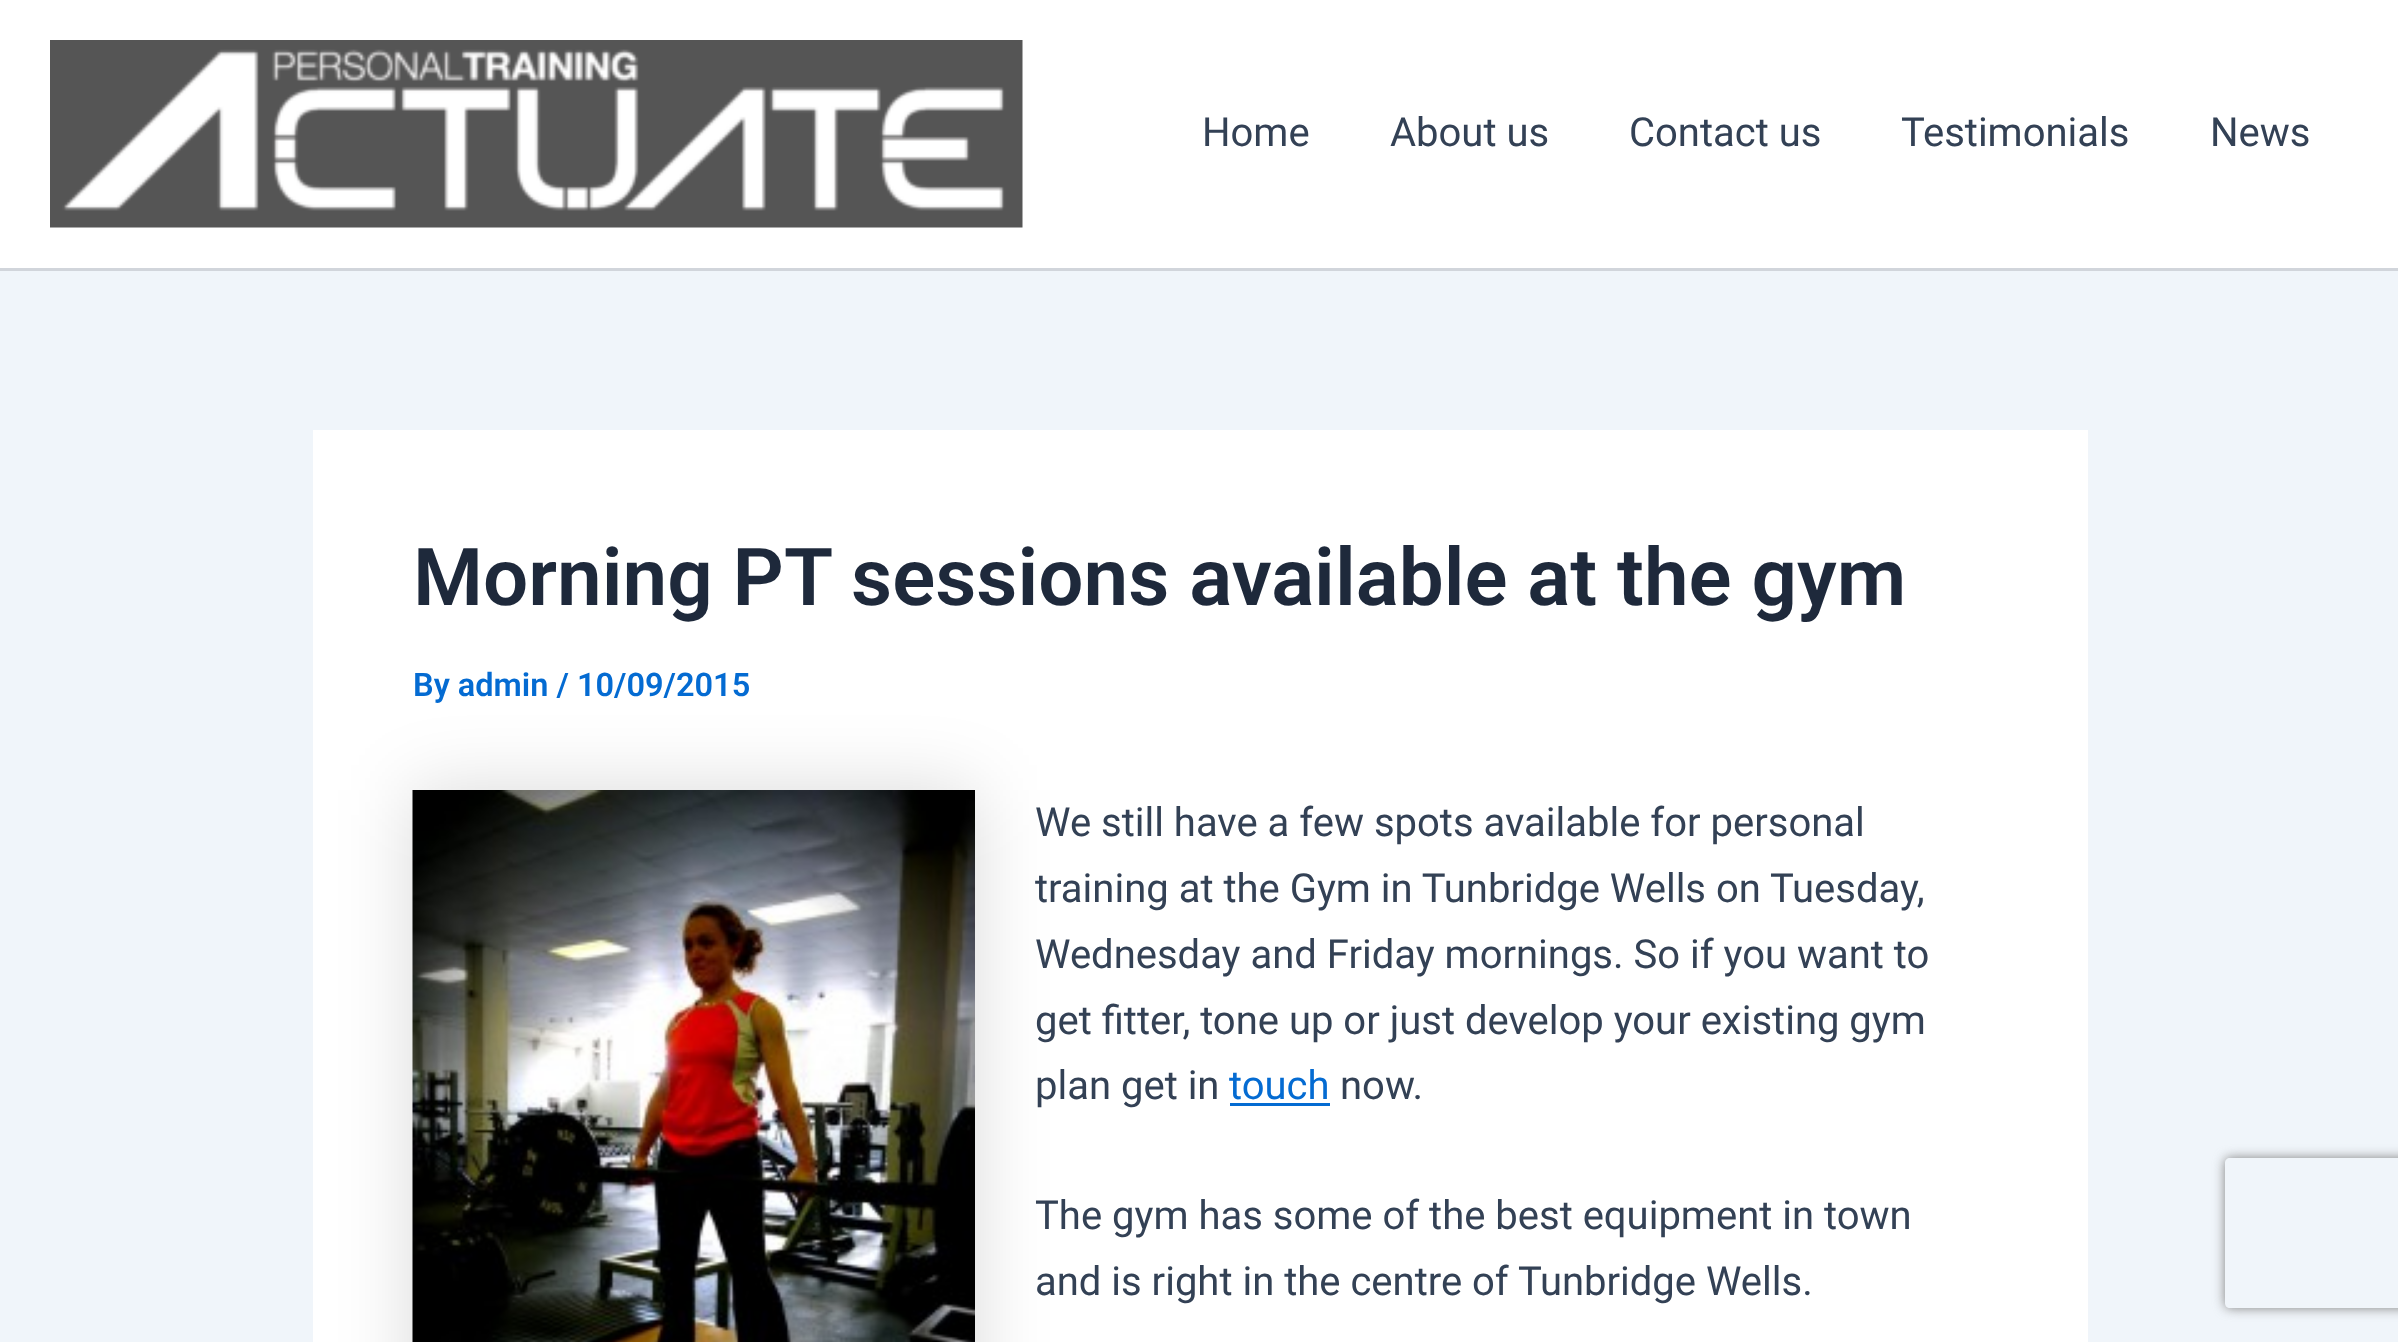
async function draw(canvas) {
	canvas.width = 2398;
	canvas.height = 1342;
	const c = canvas.getContext('2d');
	c.miterLimit = 4;
	c.fontKerning = 'normal';
	async function loadImage(src) {
		const img = new Image();
		img.src = src;
		await img.decode();
		return img;
	}

	c.fillStyle = '#f0f5fa';
	c.fillRect(0, 0, 2398, 1342);
	c.fillStyle = '#fff';
	c.fillRect(0, 0, 2398, 268);
	c.fillStyle = '#d1d5db';
	c.fillRect(0, 268, 2398, 3);
	c.drawImage(await loadImage('img1.png'), 50, 40, 973, 188);
	c.font = '40px Roboto';
	c.fillStyle = '#334155';
	for (const [text, x, y] of [
		['Home', 1202, 146],
		['About us', 1390, 146],
		['Contact us', 1629, 146],
		['Testimonials', 1901, 146],
		['News', 2210, 146],
	]) {
		c.fillText(text, x, y);
	}
	c.fillStyle = '#fff';
	c.fillRect(313, 430, 1775, 912);
	c.font = '600 80px Roboto';
	c.fillStyle = '#1e293b';
	c.fillText('Morning PT sessions available at the gym', 413, 605);
	c.fillStyle = '#00000026';
	c.filter = 'blur(37.5px)';
	c.beginPath();
	c.rect(413, 790, 562, 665);
	c.fill();
	c.filter = 'none';
	c.font = '600 32.5px Roboto';
	c.fillStyle = '#046bd2';
	c.fillText('By admin / 10/09/2015', 413, 696);
	c.drawImage(await loadImage('img2.png'), 412, 790, 563, 552);
	c.font = '40px Roboto';
	c.fillStyle = '#334155';
	for (const [text, x, y] of [
		['We still have a few spots available for personal', 1035, 836],
		['training at the Gym in Tunbridge Wells on Tuesday,', 1035, 902],
		['Wednesday and Friday mornings. So if you want to', 1035, 968],
		['get fitter, tone up or just develop your existing gym', 1035, 1034],
		['plan get in', 1035, 1099],
	]) {
		c.fillText(text, x, y);
	}
	c.fillStyle = '#046bd2';
	c.fillText('touch', 1229, 1099);
	c.fillRect(1230, 1103, 100, 3);
	c.fillStyle = '#334155';
	for (const [text, x, y] of [
		['now.', 1340, 1099],
		['The gym has some of the best equipment in town', 1035, 1229],
		['and is right in the centre of Tunbridge Wells.', 1035, 1295],
	]) {
		c.fillText(text, x, y);
	}
	c.save();
	c.beginPath();
	c.moveTo(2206, 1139);
	c.lineTo(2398, 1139);
	c.lineTo(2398, 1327);
	c.lineTo(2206, 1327);
	c.closePath();
	c.moveTo(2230, 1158);
	c.lineTo(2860, 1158);
	c.bezierCurveTo(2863, 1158, 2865, 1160, 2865, 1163);
	c.lineTo(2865, 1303);
	c.bezierCurveTo(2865, 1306, 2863, 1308, 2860, 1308);
	c.lineTo(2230, 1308);
	c.bezierCurveTo(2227, 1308, 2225, 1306, 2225, 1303);
	c.lineTo(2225, 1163);
	c.bezierCurveTo(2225, 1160, 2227, 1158, 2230, 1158);
	c.closePath();
	c.clip('evenodd');
	c.fillStyle = '#808080';
	c.filter = 'blur(6px)';
	c.beginPath();
	c.roundRect(2225, 1158, 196, 150, 5);
	c.fill();
	c.filter = 'none';
	c.restore();
}

draw(document.querySelector('canvas'));
